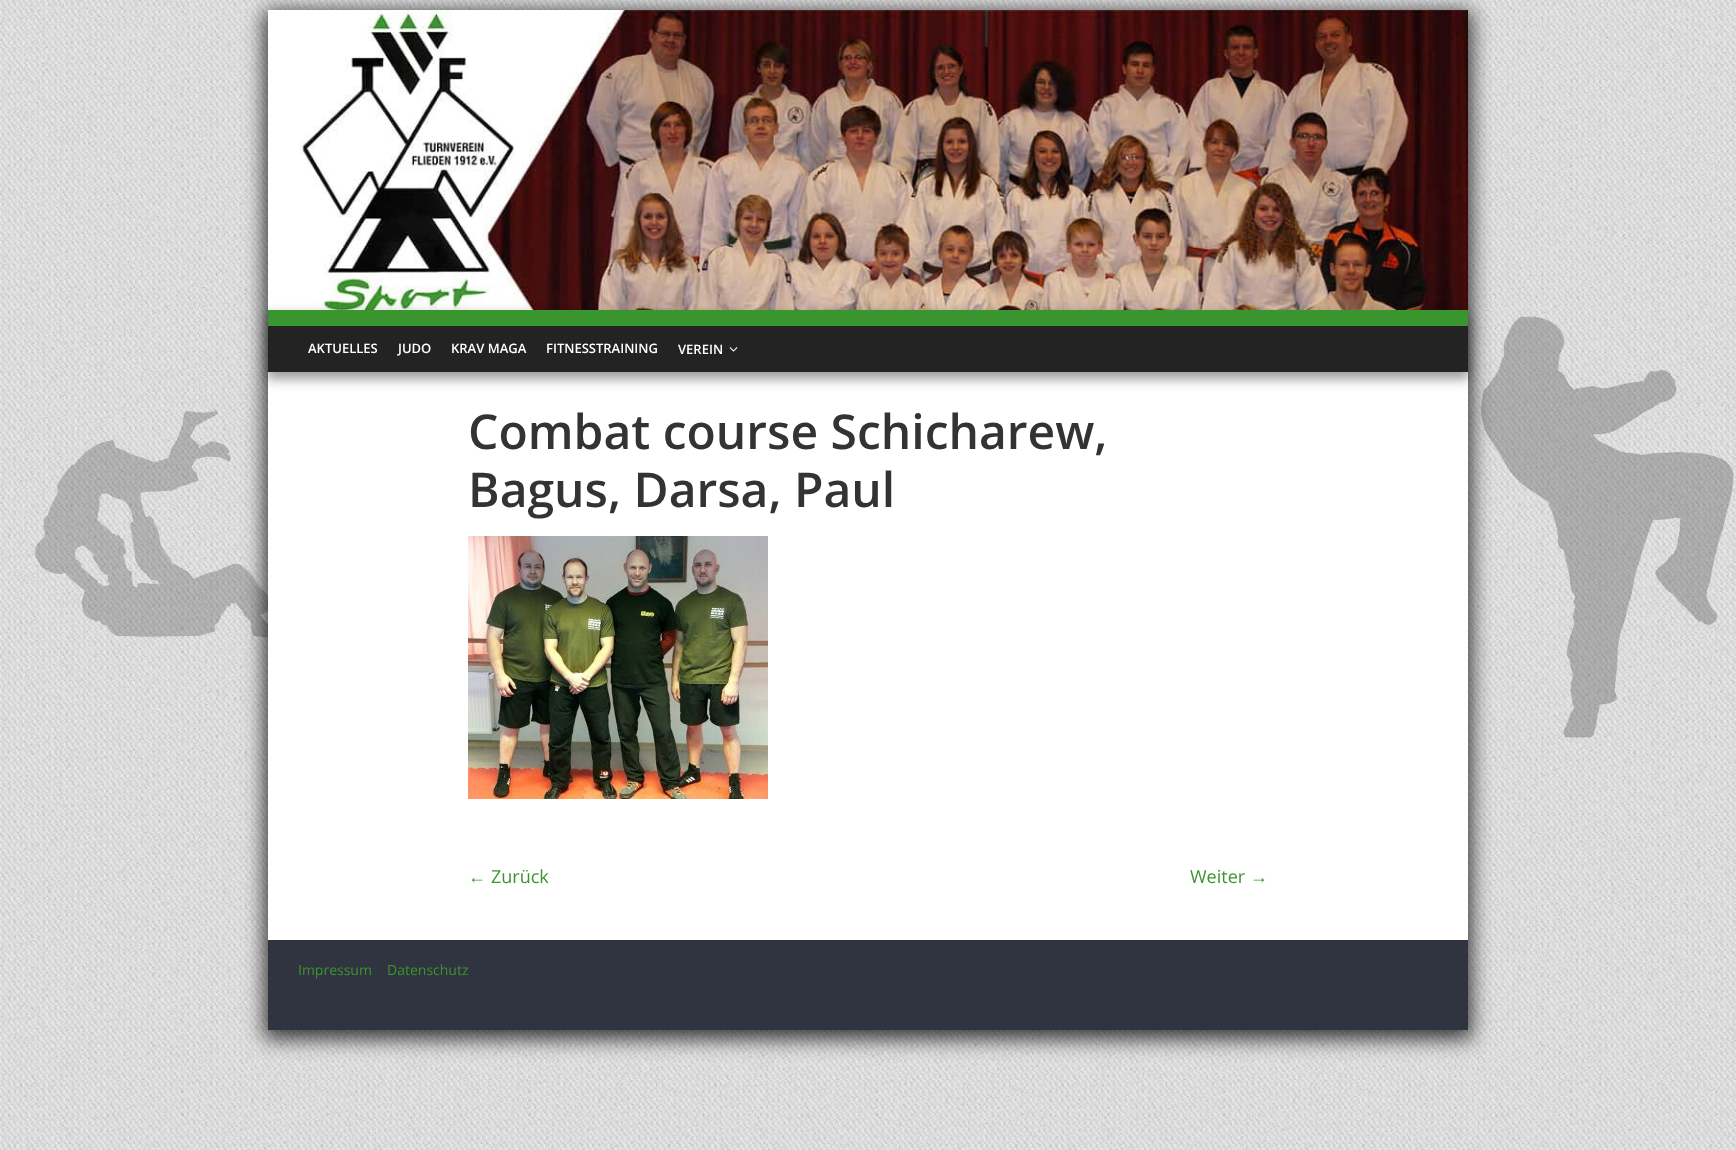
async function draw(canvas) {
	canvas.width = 1736;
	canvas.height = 1150;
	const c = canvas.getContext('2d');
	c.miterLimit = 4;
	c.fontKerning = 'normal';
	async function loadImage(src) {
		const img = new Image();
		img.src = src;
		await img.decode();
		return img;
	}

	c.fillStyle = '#fff';
	c.fillRect(0, 0, 1736, 1150);
	c.drawImage(await loadImage('img1.png'), 0, 0, 1736, 1150);
	c.fillStyle = '#000000bf';
	c.filter = 'blur(10px)';
	c.beginPath();
	c.rect(264, 11, 1208, 1028);
	c.fill();
	c.filter = 'none';
	c.drawImage(await loadImage('img2.png'), 268, 10, 1200, 300);
	c.fillStyle = '#fff';
	c.fillRect(268, 372, 1200, 568);
	c.fillStyle = '#00000066';
	c.filter = 'blur(6px)';
	c.beginPath();
	c.rect(267, 315, 1202, 64);
	c.fill();
	c.filter = 'none';
	c.fillStyle = '#232323';
	c.fillRect(268, 326, 1200, 46);
	c.fillStyle = '#3b952f';
	c.fillRect(268, 310, 1200, 16);
	c.font = '600 13px Open Sans';
	c.fillStyle = '#fff';
	for (const [text, x, y] of [
		['AKTUELLES', 308, 353],
		['JUDO', 398, 353],
		['KRAV MAGA', 451, 353],
		['FITNESSTRAINING', 546, 353],
		['VEREIN', 678, 354],
	]) {
		c.fillText(text, x, y);
	}
	c.drawImage(await loadImage('img3.png'), 729, 347, 9, 5);
	c.font = '600 48px Open Sans';
	c.fillStyle = '#333';
	c.fillText('Combat course Schicharew,', 468, 449);
	c.fillText('Bagus, Darsa, Paul', 468, 507);
	c.drawImage(await loadImage('img4.png'), 468, 536, 300, 263);
	c.font = '18px Liberation Serif';
	c.fillStyle = '#3b952f';
	c.fillText('←', 468, 883);
	c.font = '18px Open Sans';
	c.fillText('Zurück', 491, 883);
	c.fillText('Weiter', 1190, 883);
	c.font = '18px Liberation Serif';
	c.fillText('→', 1250, 883);
	c.fillStyle = '#303440';
	c.fillRect(268, 940, 1200, 90);
	c.font = '14px Open Sans';
	c.fillStyle = '#3b952f';
	c.fillText('Impressum', 298, 975);
	c.fillText('Datenschutz', 387, 975);
}

draw(document.querySelector('canvas'));
